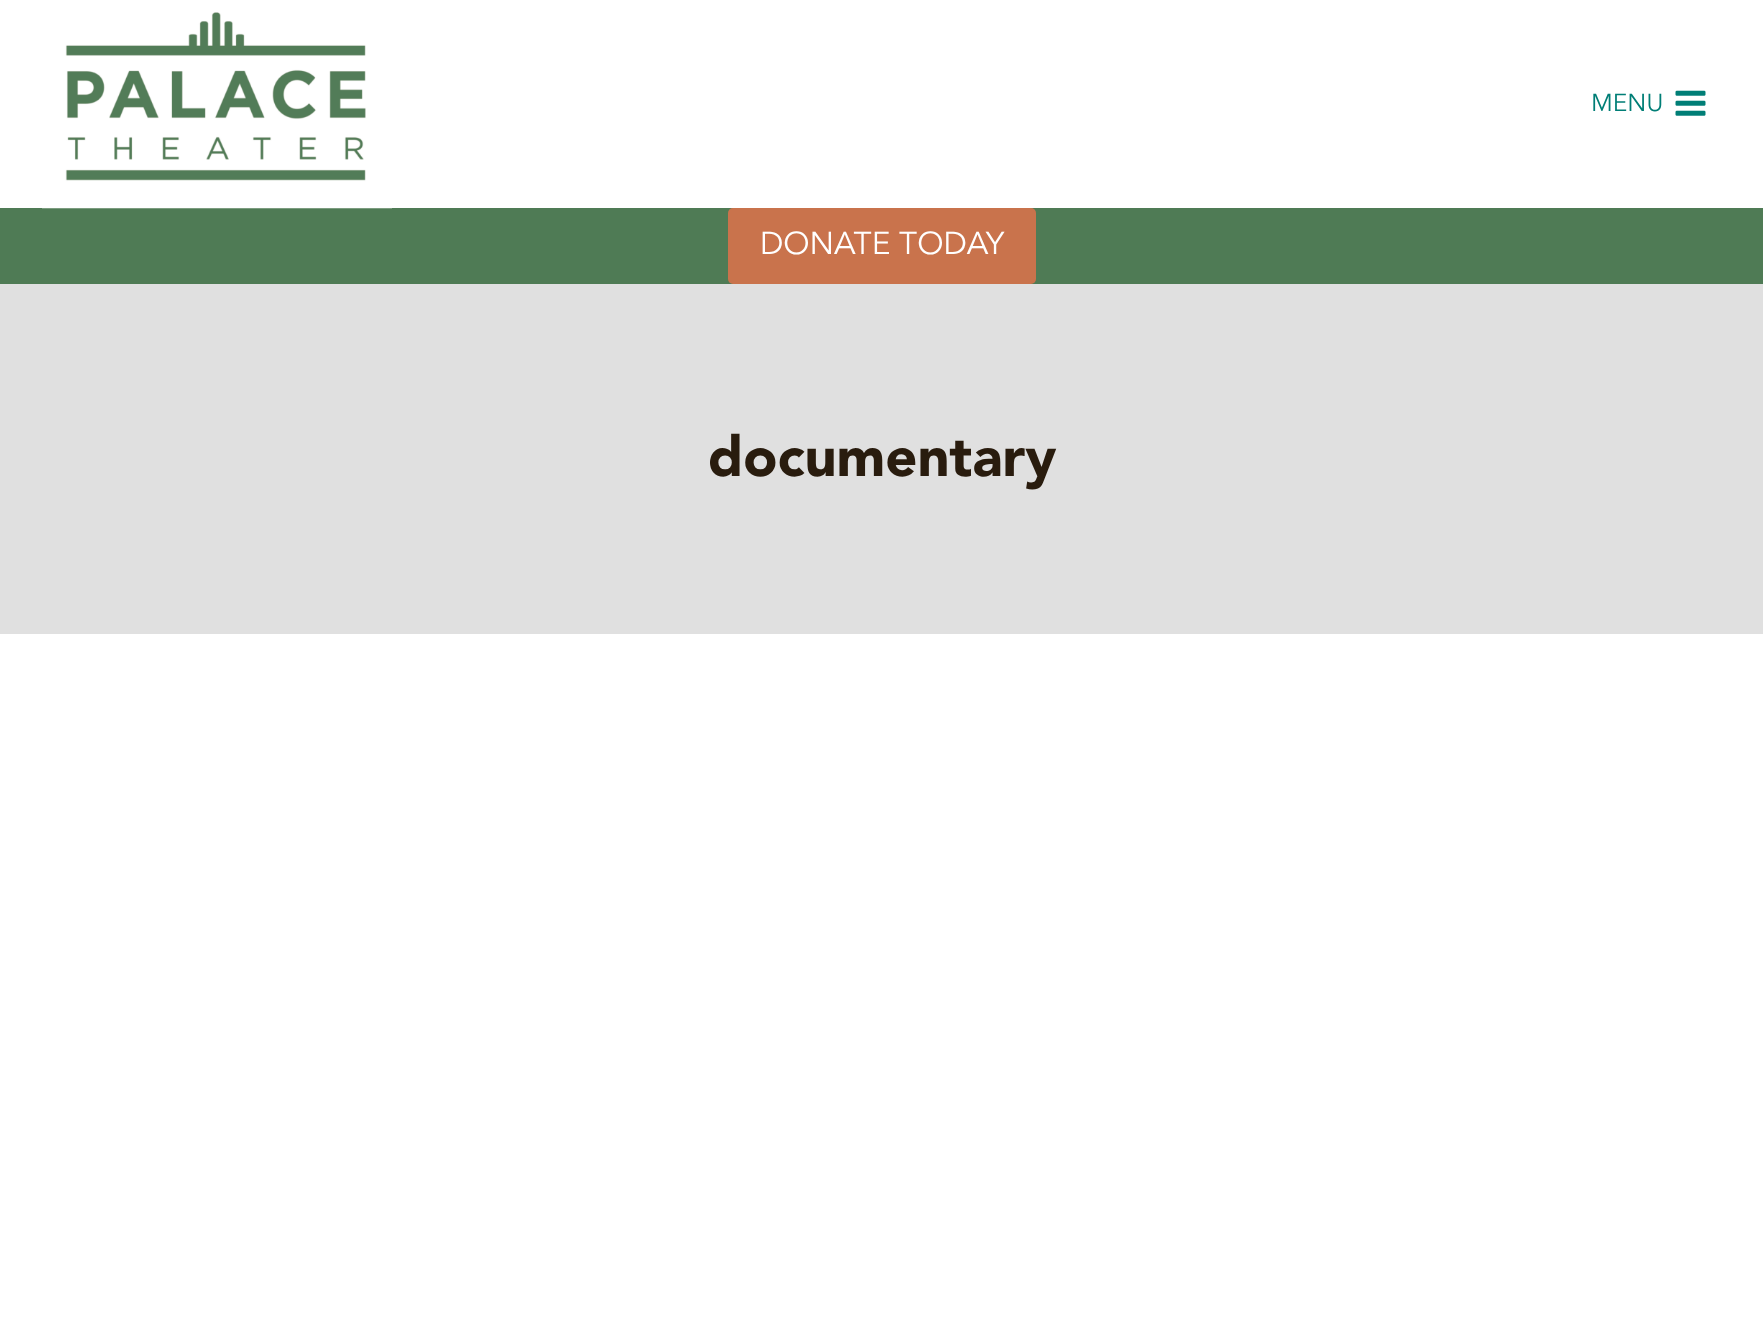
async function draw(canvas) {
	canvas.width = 1763;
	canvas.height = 1327;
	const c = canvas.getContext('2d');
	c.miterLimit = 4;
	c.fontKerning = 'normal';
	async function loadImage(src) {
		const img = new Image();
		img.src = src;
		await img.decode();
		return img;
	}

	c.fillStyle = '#fff';
	c.fillRect(0, 0, 1763, 1327);
	c.fillStyle = '#4f7b55';
	c.fillRect(0, 208, 1763, 76);
	c.drawImage(await loadImage('img1.png'), 42, 12, 350, 197);
	c.font = '24.5px Avenir';
	c.fillStyle = '#007e76';
	c.fillText('MENU', 1591, 111);
	c.drawImage(await loadImage('img2.png'), 1675, 90, 31, 26);
	c.fillStyle = '#c9734c';
	c.beginPath();
	c.roundRect(728, 208, 308, 76, 5);
	c.fill();
	c.font = '31.5px Avenir';
	c.fillStyle = '#fff';
	c.fillText('DONATE TODAY', 760, 254);
	c.fillStyle = '#e0e0e0';
	c.fillRect(0, 284, 1763, 350);
	c.font = '900 56px Avenir';
	c.fillStyle = '#291c0e';
	c.fillText('documentary', 708, 476);
}

draw(document.querySelector('canvas'));
